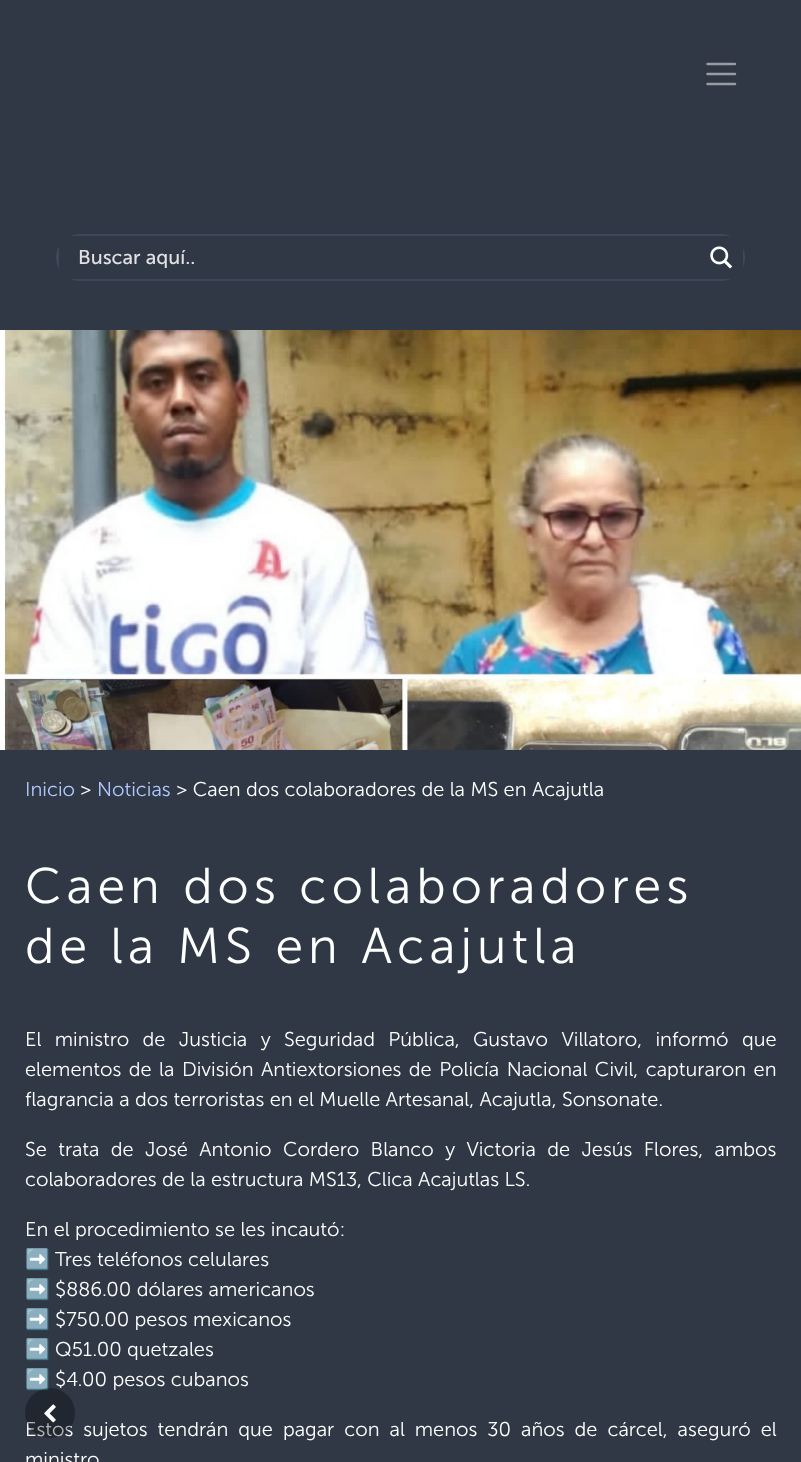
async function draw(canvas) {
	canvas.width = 801;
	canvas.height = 1462;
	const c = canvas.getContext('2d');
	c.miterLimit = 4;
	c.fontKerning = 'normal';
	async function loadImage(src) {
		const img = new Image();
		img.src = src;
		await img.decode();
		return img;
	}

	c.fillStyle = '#303845';
	c.fillRect(0, 0, 801, 1462);
	c.beginPath();
	c.moveTo(707.5, 64);
	c.lineTo(735, 64);
	c.moveTo(707.5, 74);
	c.lineTo(735, 74);
	c.moveTo(707.5, 84);
	c.lineTo(735, 84);
	c.strokeStyle = '#989ca2';
	c.lineWidth = 2.5;
	c.lineCap = 'round';
	c.stroke();
	c.beginPath();
	c.roundRect(57.5, 235.5, 686, 44, 22);
	c.strokeStyle = '#3f485b';
	c.lineWidth = 3;
	c.stroke();
	c.fillRect(59, 236, 684, 43);
	c.font = '20px Museo Sans';
	c.fillStyle = '#e0e1e3';
	c.fillText('Buscar aquí..', 78, 264);
	c.drawImage(await loadImage('img1.png'), 710, 246, 23, 23);
	c.drawImage(await loadImage('img2.png'), 0, 330, 801, 420);
	c.font = '300 20px Museo Sans';
	c.fillStyle = '#b1c9ff';
	c.fillText('Inicio', 25, 796);
	c.fillStyle = '#feffff';
	c.fillText('>', 80, 796);
	c.fillStyle = '#b1c9ff';
	c.fillText('Noticias', 97, 796);
	c.fillStyle = '#feffff';
	c.fillText('> Caen dos colaboradores de la MS en Acajutla', 176, 796);
	c.letterSpacing = '5px';
	c.font = '300 50px Museo Sans';
	c.fillText('Caen dos colaboradores', 25, 903);
	c.fillText('de la MS en Acajutla', 25, 963);
	c.letterSpacing = '0px';
	c.wordSpacing = '8px';
	c.font = '300 20px Museo Sans';
	c.fillText('El ministro de Justicia y Seguridad Pública, Gustavo Villatoro, informó que', 25, 1046);
	c.wordSpacing = '2.1px';
	c.fillText('elementos de la División Antiextorsiones de Policía Nacional Civil, capturaron en', 25, 1076);
	c.wordSpacing = '0px';
	c.fillText('flagrancia a dos terroristas en el Muelle Artesanal, Acajutla, Sonsonate.', 25, 1106);
	c.wordSpacing = '6px';
	c.fillText('Se trata de José Antonio Cordero Blanco y Victoria de Jesús Flores, ambos', 25, 1156);
	c.wordSpacing = '0px';
	c.fillText('colaboradores de la estructura MS13, Clica Acajutlas LS.', 25, 1186);
	c.fillText('En el procedimiento se les incautó:', 25, 1236);
	c.font = '20px Noto Color Emoji';
	c.fillText('➡️', 25, 1266);
	c.font = '300 20px Museo Sans';
	c.fillText('Tres teléfonos celulares', 55, 1266);
	c.font = '20px Noto Color Emoji';
	c.fillText('➡️', 25, 1296);
	c.font = '300 20px Museo Sans';
	c.fillText('$886.00 dólares americanos', 55, 1296);
	c.font = '20px Noto Color Emoji';
	c.fillText('➡️', 25, 1326);
	c.font = '300 20px Museo Sans';
	c.fillText('$750.00 pesos mexicanos', 55, 1326);
	c.font = '20px Noto Color Emoji';
	c.fillText('➡️', 25, 1356);
	c.font = '300 20px Museo Sans';
	c.fillText('Q51.00 quetzales', 55, 1356);
	c.font = '20px Noto Color Emoji';
	c.fillText('➡️', 25, 1386);
	c.font = '300 20px Museo Sans';
	c.fillText('$4.00 pesos cubanos', 55, 1386);
	c.wordSpacing = '4.6px';
	c.fillText('Estos sujetos tendrán que pagar con al menos 30 años de cárcel, aseguró el', 25, 1436);
	c.wordSpacing = '0px';
	c.fillText('ministro', 25, 1466);
	c.fillStyle = '#0000004d';
	c.beginPath();
	c.arc(50, 1413, 25, 0, 2 * Math.PI);
	c.fill();
	c.drawImage(await loadImage('img3.png'), 44, 1404, 12, 19);
}

draw(document.querySelector('canvas'));
